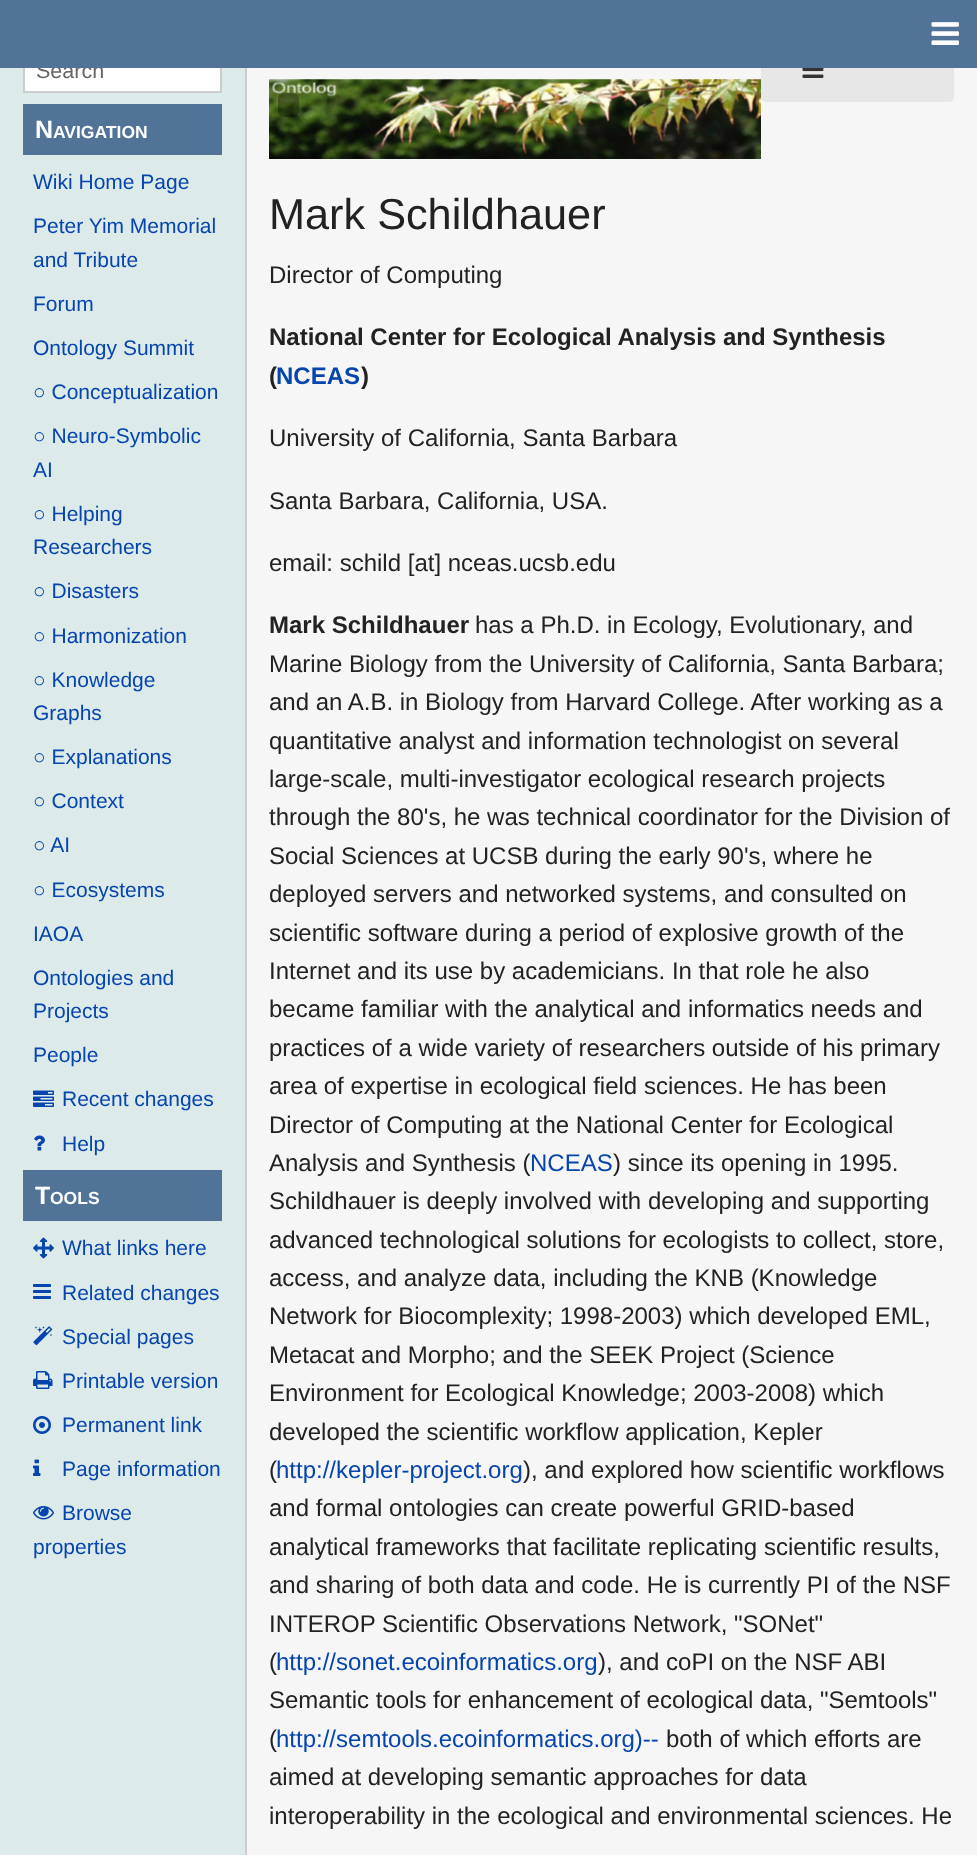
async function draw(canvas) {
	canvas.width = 977;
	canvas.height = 1855;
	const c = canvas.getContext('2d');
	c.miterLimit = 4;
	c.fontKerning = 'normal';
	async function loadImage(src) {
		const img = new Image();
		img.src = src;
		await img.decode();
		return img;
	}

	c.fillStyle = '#dceaea';
	c.fillRect(0, 0, 977, 1855);
	c.fillStyle = '#fff';
	c.fillRect(25, 68, 195, 23);
	c.strokeStyle = '#ccc';
	c.lineWidth = 2;
	c.strokeRect(24, 49, 197, 43);
	c.font = '21.5px Liberation Sans';
	c.fillStyle = '#666';
	c.fillText('Search', 36, 78);
	c.fillStyle = '#f6f6f6';
	c.fillRect(247, 68, 730, 1787);
	c.fillStyle = '#e7e7e7';
	c.beginPath();
	c.roundRect(761, 36, 193, 66, 5);
	c.fill();
	c.fillStyle = '#517398';
	c.fillRect(0, 0, 977, 68);
	c.drawImage(await loadImage('img1.png'), 931, 22, 28, 23);
	c.fillRect(23, 104, 199, 51);
	c.font = 'bold 25px Liberation Sans';
	c.fillStyle = '#fff';
	c.fillText('N', 35, 138);
	c.font = 'bold 17.5px Liberation Sans';
	c.fillText('AVIGATION', 53, 138);
	c.font = '21px Liberation Sans';
	c.fillStyle = '#0645ad';
	for (const [text, x, y] of [
		['Wiki Home Page', 33, 189],
		['Peter Yim Memorial', 33, 233],
		['and Tribute', 33, 267],
		['Forum', 33, 311],
		['Ontology Summit', 33, 355],
		['○ Conceptualization', 33, 399],
		['○ Neuro-Symbolic', 33, 443],
		['AI', 33, 477],
		['○ Helping', 33, 521],
		['Researchers', 33, 554],
		['○ Disasters', 33, 598],
		['○ Harmonization', 33, 643],
		['○ Knowledge', 33, 687],
		['Graphs', 33, 720],
		['○ Explanations', 33, 764],
		['○ Context', 33, 808],
		['○ AI', 33, 852],
		['○ Ecosystems', 33, 897],
		['IAOA', 33, 941],
		['Ontologies and', 33, 985],
		['Projects', 33, 1018],
		['People', 33, 1062],
	]) {
		c.fillText(text, x, y);
	}
	c.drawImage(await loadImage('img2.png'), 33, 1090, 21, 17);
	c.fillText('Recent changes', 62, 1106);
	c.drawImage(await loadImage('img3.png'), 34, 1135, 11, 16);
	c.fillText('Help', 62, 1151);
	c.fillStyle = '#517398';
	c.fillRect(23, 1170, 199, 51);
	c.font = 'bold 25px Liberation Sans';
	c.fillStyle = '#fff';
	c.fillText('T', 35, 1204);
	c.font = 'bold 17.5px Liberation Sans';
	c.fillText('OOLS', 50, 1204);
	c.drawImage(await loadImage('img4.png'), 33, 1237, 21, 22);
	c.font = '21px Liberation Sans';
	c.fillStyle = '#0645ad';
	c.fillText('What links here', 62, 1255);
	c.drawImage(await loadImage('img5.png'), 33, 1284, 18, 15);
	c.fillText('Related changes', 62, 1300);
	c.drawImage(await loadImage('img6.png'), 33, 1326, 20, 20);
	c.fillText('Special pages', 62, 1344);
	c.drawImage(await loadImage('img7.png'), 33, 1371, 20, 18);
	c.fillText('Printable version', 62, 1388);
	c.drawImage(await loadImage('img8.png'), 33, 1416, 18, 18);
	c.fillText('Permanent link', 62, 1432);
	c.drawImage(await loadImage('img9.png'), 33, 1459, 8, 17);
	c.fillText('Page information', 62, 1476);
	c.drawImage(await loadImage('img10.png'), 33, 1506, 21, 14);
	c.fillText('Browse', 62, 1520);
	c.fillText('properties', 33, 1554);
	c.fillStyle = '#ccc';
	c.fillRect(245, 68, 2, 1787);
	c.drawImage(await loadImage('img11.png'), 802, 68, 22, 10);
	c.drawImage(await loadImage('img12.png'), 269, 79, 492, 80);
	c.fillStyle = '#0000004d';
	c.beginPath();
	c.roundRect(278, 93, 21, 24, 6);
	c.fill();
	c.font = '43.25px Liberation Sans';
	c.fillStyle = '#222';
	c.fillText('Mark Schildhauer', 269, 229);
	c.font = '24px Liberation Sans';
	c.fillText('Director of Computing', 269, 283);
	c.font = 'bold 24px Liberation Sans';
	c.fillText('National Center for Ecological Analysis and Synthesis', 269, 345);
	c.fillText('(', 269, 384);
	c.fillStyle = '#0645ad';
	c.fillText('NCEAS', 276, 384);
	c.fillStyle = '#222';
	c.fillText(')', 361, 384);
	c.font = '24px Liberation Sans';
	for (const [text, x, y] of [
		['University of California, Santa Barbara', 269, 446],
		['Santa Barbara, California, USA.', 269, 509],
		['email: schild [at] nceas.ucsb.edu', 269, 571],
	]) {
		c.fillText(text, x, y);
	}
	c.font = 'bold 24px Liberation Sans';
	c.fillText('Mark Schildhauer', 269, 633);
	c.font = '24px Liberation Sans';
	for (const [text, x, y] of [
		['has a Ph.D. in Ecology, Evolutionary, and', 475, 633],
		['Marine Biology from the University of California, Santa Barbara;', 269, 672],
		['and an A.B. in Biology from Harvard College. After working as a', 269, 710],
		['quantitative analyst and information technologist on several', 269, 749],
		['large-scale, multi-investigator ecological research projects', 269, 787],
		['through the 80\'s, he was technical coordinator for the Division of', 269, 825],
		['Social Sciences at UCSB during the early 90\'s, where he', 269, 864],
		['deployed servers and networked systems, and consulted on', 269, 902],
		['scientific software during a period of explosive growth of the', 269, 941],
		['Internet and its use by academicians. In that role he also', 269, 979],
		['became familiar with the analytical and informatics needs and', 269, 1017],
		['practices of a wide variety of researchers outside of his primary', 269, 1056],
		['area of expertise in ecological field sciences. He has been', 269, 1094],
		['Director of Computing at the National Center for Ecological', 269, 1133],
		['Analysis and Synthesis (', 269, 1171],
	]) {
		c.fillText(text, x, y);
	}
	c.fillStyle = '#0645ad';
	c.fillText('NCEAS', 530, 1171);
	c.fillStyle = '#222';
	for (const [text, x, y] of [
		[') since its opening in 1995.', 613, 1171],
		['Schildhauer is deeply involved with developing and supporting', 269, 1209],
		['advanced technological solutions for ecologists to collect, store,', 269, 1248],
		['access, and analyze data, including the KNB (Knowledge', 269, 1286],
		['Network for Biocomplexity; 1998-2003) which developed EML,', 269, 1324],
		['Metacat and Morpho; and the SEEK Project (Science', 269, 1363],
		['Environment for Ecological Knowledge; 2003-2008) which', 269, 1401],
		['developed the scientific workflow application, Kepler', 269, 1440],
		['(', 269, 1478],
	]) {
		c.fillText(text, x, y);
	}
	c.fillStyle = '#0645ad';
	c.fillText('http://kepler-project.org', 276, 1478);
	c.fillStyle = '#222';
	for (const [text, x, y] of [
		['), and explored how scientific workflows', 523, 1478],
		['and formal ontologies can create powerful GRID-based', 269, 1516],
		['analytical frameworks that facilitate replicating scientific results,', 269, 1555],
		['and sharing of both data and code. He is currently PI of the NSF', 269, 1593],
		['INTEROP Scientific Observations Network, "SONet"', 269, 1632],
		['(', 269, 1670],
	]) {
		c.fillText(text, x, y);
	}
	c.fillStyle = '#0645ad';
	c.fillText('http://sonet.ecoinformatics.org', 276, 1670);
	c.fillStyle = '#222';
	for (const [text, x, y] of [
		['), and coPI on the NSF ABI', 598, 1670],
		['Semantic tools for enhancement of ecological data, "Semtools"', 269, 1708],
		['(', 269, 1747],
	]) {
		c.fillText(text, x, y);
	}
	c.fillStyle = '#0645ad';
	c.fillText('http://semtools.ecoinformatics.org)--', 276, 1747);
	c.fillStyle = '#222';
	for (const [text, x, y] of [
		['both of which efforts are', 666, 1747],
		['aimed at developing semantic approaches for data', 269, 1785],
		['interoperability in the ecological and environmental sciences. He', 269, 1824],
	]) {
		c.fillText(text, x, y);
	}
}

draw(document.querySelector('canvas'));
